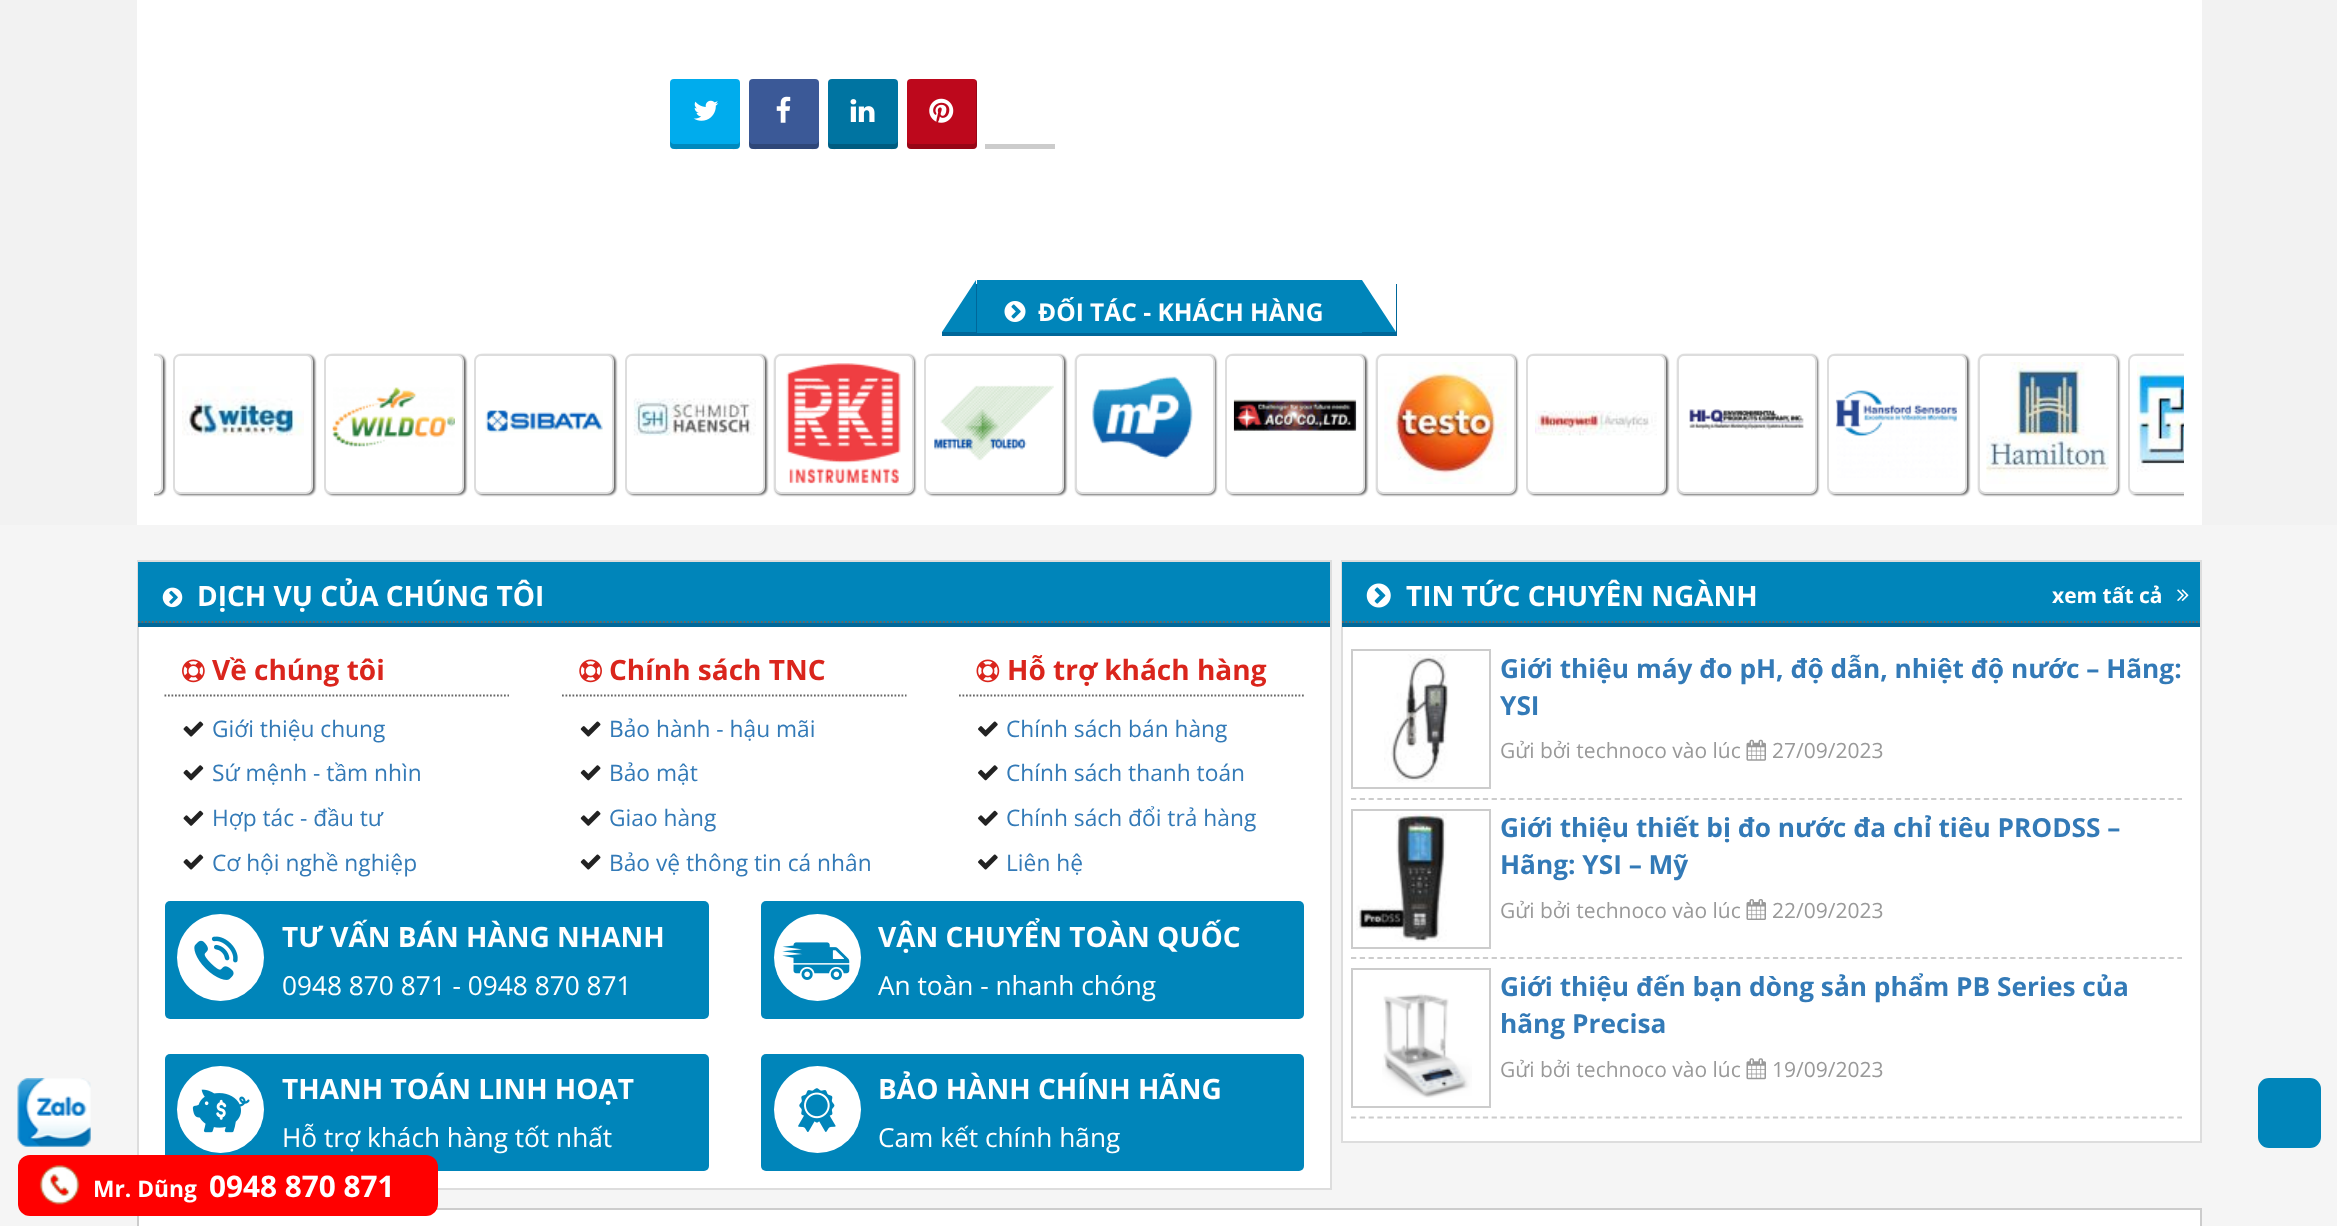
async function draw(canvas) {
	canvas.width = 2337;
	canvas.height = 1226;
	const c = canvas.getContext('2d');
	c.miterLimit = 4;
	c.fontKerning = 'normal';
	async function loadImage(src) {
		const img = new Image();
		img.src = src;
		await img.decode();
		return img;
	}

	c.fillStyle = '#f2f2f2';
	c.fillRect(0, 0, 2337, 1226);
	c.fillStyle = '#f5f5f5';
	c.fillRect(0, 525, 2337, 701);
	c.drawImage(await loadImage('img1.png'), 17, 1078, 74, 69);
	c.fillStyle = '#fff';
	c.fillRect(137, 0, 2065, 525);
	c.fillStyle = '#00aced';
	c.beginPath();
	c.roundRect(670, 79, 70, 70, 4);
	c.fill();
	c.fillStyle = '#00000033';
	c.beginPath();
	c.moveTo(670, 140);
	c.bezierCurveTo(670, 151, 672, 149, 684, 149);
	c.lineTo(726, 149);
	c.bezierCurveTo(738, 149, 740, 151, 740, 140);
	c.bezierCurveTo(740, 142, 739, 144, 737, 144);
	c.lineTo(674, 144);
	c.bezierCurveTo(672, 144, 670, 142, 670, 140);
	c.closePath();
	c.fill();
	c.drawImage(await loadImage('img2.png'), 693, 100, 26, 21);
	c.fillStyle = '#3b5997';
	c.beginPath();
	c.roundRect(749, 79, 70, 70, 4);
	c.fill();
	c.fillStyle = '#00000033';
	c.beginPath();
	c.moveTo(749, 140);
	c.bezierCurveTo(749, 151, 751, 149, 763, 149);
	c.lineTo(805, 149);
	c.bezierCurveTo(817, 149, 819, 151, 819, 140);
	c.bezierCurveTo(819, 142, 817, 144, 816, 144);
	c.lineTo(752, 144);
	c.bezierCurveTo(751, 144, 749, 142, 749, 140);
	c.closePath();
	c.fill();
	c.drawImage(await loadImage('img3.png'), 776, 96, 15, 27);
	c.fillStyle = '#0074a1';
	c.beginPath();
	c.roundRect(828, 79, 70, 70, 4);
	c.fill();
	c.fillStyle = '#00000033';
	c.beginPath();
	c.moveTo(828, 140);
	c.bezierCurveTo(828, 151, 830, 149, 842, 149);
	c.lineTo(884, 149);
	c.bezierCurveTo(896, 149, 898, 151, 898, 140);
	c.bezierCurveTo(898, 142, 896, 144, 894, 144);
	c.lineTo(831, 144);
	c.bezierCurveTo(829, 144, 828, 142, 828, 140);
	c.closePath();
	c.fill();
	c.drawImage(await loadImage('img4.png'), 850, 99, 25, 23);
	c.fillStyle = '#bd081c';
	c.beginPath();
	c.roundRect(907, 79, 70, 70, 4);
	c.fill();
	c.fillStyle = '#00000033';
	c.beginPath();
	c.moveTo(907, 142);
	c.lineTo(907, 145);
	c.bezierCurveTo(907, 147, 909, 149, 911, 149);
	c.lineTo(973, 149);
	c.bezierCurveTo(975, 149, 977, 147, 977, 145);
	c.lineTo(977, 83);
	c.bezierCurveTo(977, 82, 977, 81, 976, 80);
	c.lineTo(976, 140);
	c.bezierCurveTo(976, 142, 975, 144, 973, 144);
	c.lineTo(910, 144);
	c.bezierCurveTo(909, 144, 908, 143, 907, 142);
	c.closePath();
	c.fill();
	c.drawImage(await loadImage('img5.png'), 929, 98, 25, 25);
	c.fillStyle = '#ccc';
	c.fillRect(985, 144, 70, 5);
	c.fillStyle = '#006799';
	c.beginPath();
	c.moveTo(977, 332);
	c.lineTo(977, 336);
	c.lineTo(1362, 336);
	c.lineTo(1362, 284);
	c.lineTo(1362, 332);
	c.closePath();
	c.fill();
	c.fillStyle = '#0085ba';
	c.fillRect(977, 280, 385, 53);
	c.fillStyle = '#006799';
	c.beginPath();
	c.moveTo(942, 332);
	c.lineTo(942, 336);
	c.lineTo(977, 336);
	c.lineTo(977, 284);
	c.lineTo(976, 284);
	c.lineTo(976, 332);
	c.closePath();
	c.fill();
	c.fillStyle = '#0085ba';
	c.beginPath();
	c.moveTo(976, 332);
	c.lineTo(942, 332);
	c.lineTo(976, 280);
	c.closePath();
	c.fill();
	c.drawImage(await loadImage('img6.png'), 1004, 301, 22, 21);
	c.font = 'bold 24.5px Open Sans';
	c.fillStyle = '#fff';
	c.fillText('ĐỐI TÁC - KHÁCH HÀNG', 1038, 321);
	c.fillStyle = '#006799';
	c.beginPath();
	c.moveTo(1362, 332);
	c.lineTo(1362, 336);
	c.lineTo(1397, 336);
	c.lineTo(1397, 284);
	c.lineTo(1396, 284);
	c.lineTo(1396, 332);
	c.closePath();
	c.fill();
	c.fillStyle = '#0085ba';
	c.beginPath();
	c.moveTo(1396, 332);
	c.lineTo(1362, 332);
	c.lineTo(1362, 280);
	c.closePath();
	c.fill();
	c.save();
	c.beginPath();
	c.rect(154, 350, 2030, 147);
	c.clip();
	c.fillStyle = '#666';
	c.filter = 'blur(1px)';
	c.beginPath();
	c.roundRect(25, 355, 140, 140, 7);
	c.fill();
	c.filter = 'none';
	c.restore();
	c.fillStyle = '#666';
	c.filter = 'blur(1px)';
	c.beginPath();
	c.roundRect(175, 355, 140, 140, 7);
	c.fill();
	c.filter = 'none';
	c.filter = 'blur(1px)';
	c.beginPath();
	c.roundRect(326, 355, 140, 140, 7);
	c.fill();
	c.filter = 'none';
	c.filter = 'blur(1px)';
	c.beginPath();
	c.roundRect(476, 355, 140, 140, 7);
	c.fill();
	c.filter = 'none';
	c.filter = 'blur(1px)';
	c.beginPath();
	c.roundRect(627, 355, 140, 140, 7);
	c.fill();
	c.filter = 'none';
	c.filter = 'blur(1px)';
	c.beginPath();
	c.roundRect(775, 355, 140, 140, 7);
	c.fill();
	c.filter = 'none';
	c.filter = 'blur(1px)';
	c.beginPath();
	c.roundRect(926, 355, 140, 140, 7);
	c.fill();
	c.filter = 'none';
	c.filter = 'blur(1px)';
	c.beginPath();
	c.roundRect(1076, 355, 140, 140, 7);
	c.fill();
	c.filter = 'none';
	c.filter = 'blur(1px)';
	c.beginPath();
	c.roundRect(1227, 355, 140, 140, 7);
	c.fill();
	c.filter = 'none';
	c.filter = 'blur(1px)';
	c.beginPath();
	c.roundRect(1377, 355, 140, 140, 7);
	c.fill();
	c.filter = 'none';
	c.filter = 'blur(1px)';
	c.beginPath();
	c.roundRect(1528, 355, 140, 140, 7);
	c.fill();
	c.filter = 'none';
	c.filter = 'blur(1px)';
	c.beginPath();
	c.roundRect(1678, 355, 140, 140, 7);
	c.fill();
	c.filter = 'none';
	c.filter = 'blur(1px)';
	c.beginPath();
	c.roundRect(1829, 355, 140, 140, 7);
	c.fill();
	c.filter = 'none';
	c.filter = 'blur(1px)';
	c.beginPath();
	c.roundRect(1979, 355, 140, 140, 7);
	c.fill();
	c.filter = 'none';
	c.save();
	c.beginPath();
	c.rect(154, 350, 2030, 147);
	c.clip();
	c.filter = 'blur(1px)';
	c.beginPath();
	c.roundRect(2130, 355, 140, 140, 7);
	c.fill();
	c.filter = 'none';
	c.restore();
	c.fillStyle = '#fff';
	c.beginPath();
	c.roundRect(154, 354, 9, 140, [0, 7, 7, 0]);
	c.fill();
	c.save();
	c.beginPath();
	c.rect(154, 350, 2030, 147);
	c.clip();
	c.beginPath();
	c.roundRect(24, 355, 138, 138, 6);
	c.strokeStyle = '#ddd';
	c.lineWidth = 2;
	c.stroke();
	c.restore();
	c.beginPath();
	c.roundRect(174, 355, 138, 138, 6);
	c.fill();
	c.strokeStyle = '#ddd';
	c.lineWidth = 2;
	c.stroke();
	c.beginPath();
	c.roundRect(325, 355, 138, 138, 6);
	c.fill();
	c.stroke();
	c.beginPath();
	c.roundRect(475, 355, 138, 138, 6);
	c.fill();
	c.stroke();
	c.beginPath();
	c.roundRect(626, 355, 138, 138, 6);
	c.fill();
	c.stroke();
	c.beginPath();
	c.roundRect(775, 355, 138, 138, 6);
	c.fill();
	c.stroke();
	c.beginPath();
	c.roundRect(925, 355, 138, 138, 6);
	c.fill();
	c.stroke();
	c.beginPath();
	c.roundRect(1076, 355, 138, 138, 6);
	c.fill();
	c.stroke();
	c.beginPath();
	c.roundRect(1226, 355, 138, 138, 6);
	c.fill();
	c.stroke();
	c.beginPath();
	c.roundRect(1377, 355, 138, 138, 6);
	c.fill();
	c.stroke();
	c.beginPath();
	c.roundRect(1527, 355, 138, 138, 6);
	c.fill();
	c.stroke();
	c.beginPath();
	c.roundRect(1678, 355, 138, 138, 6);
	c.fill();
	c.stroke();
	c.beginPath();
	c.roundRect(1828, 355, 138, 138, 6);
	c.fill();
	c.stroke();
	c.beginPath();
	c.roundRect(1979, 355, 138, 138, 6);
	c.fill();
	c.stroke();
	c.beginPath();
	c.roundRect(2128, 354, 56, 140, [7, 0, 0, 7]);
	c.fill();
	c.drawImage(await loadImage('img7.png'), 1384, 362, 123, 122);
	c.drawImage(await loadImage('img8.png'), 1986, 362, 123, 122);
	c.save();
	c.beginPath();
	c.rect(154, 350, 2030, 147);
	c.clip();
	c.beginPath();
	c.roundRect(2129, 355, 138, 138, 6);
	c.stroke();
	c.restore();
	c.drawImage(await loadImage('img9.png'), 182, 386, 122, 51);
	c.drawImage(await loadImage('img10.png'), 332, 387, 123, 60);
	c.drawImage(await loadImage('img11.png'), 485, 410, 118, 23);
	c.drawImage(await loadImage('img12.png'), 633, 398, 123, 38);
	c.drawImage(await loadImage('img13.png'), 786, 363, 115, 121);
	c.drawImage(await loadImage('img14.png'), 934, 385, 120, 76);
	c.drawImage(await loadImage('img15.png'), 1092, 376, 101, 83);
	c.drawImage(await loadImage('img16.png'), 1233, 399, 124, 34);
	c.drawImage(await loadImage('img17.png'), 1535, 410, 122, 26);
	c.drawImage(await loadImage('img18.png'), 1689, 409, 115, 21);
	c.drawImage(await loadImage('img19.png'), 1835, 390, 123, 88);
	c.drawImage(await loadImage('img20.png'), 2137, 362, 47, 110);
	c.fillRect(139, 627, 1191, 561);
	c.strokeRect(138, 561, 1193, 628);
	c.fillStyle = '#006799';
	c.beginPath();
	c.moveTo(138, 565);
	c.lineTo(138, 627);
	c.lineTo(1330, 627);
	c.lineTo(1330, 623);
	c.lineTo(138, 623);
	c.closePath();
	c.fill();
	c.fillStyle = '#0085ba';
	c.fillRect(138, 562, 1192, 61);
	c.beginPath();
	c.moveTo(138, 622);
	c.lineTo(1330, 622);
	c.strokeStyle = '#666';
	c.lineWidth = 1.8;
	c.setLineDash([1.75, 1.75]);
	c.stroke();
	c.drawImage(await loadImage('img21.png'), 162, 587, 21, 21);
	c.font = 'bold 28px Open Sans';
	c.fillStyle = '#fff';
	c.fillText('DỊCH VỤ CỦA CHÚNG TÔI', 197, 606);
	c.beginPath();
	c.moveTo(164.5, 695.5);
	c.lineTo(509, 695.5);
	c.stroke();
	c.drawImage(await loadImage('img22.png'), 182, 659, 23, 24);
	c.fillStyle = '#da251c';
	c.fillText('Về chúng tôi', 212, 680);
	c.drawImage(await loadImage('img23.png'), 183, 721, 21, 16);
	c.font = '22.75px Open Sans';
	c.fillStyle = '#337ab7';
	c.fillText('Giới thiệu chung', 212, 737);
	c.drawImage(await loadImage('img24.png'), 183, 765, 21, 16);
	c.fillText('Sứ mệnh - tầm nhìn', 212, 781);
	c.drawImage(await loadImage('img25.png'), 183, 810, 21, 16);
	c.fillText('Hợp tác - đầu tư', 212, 826);
	c.drawImage(await loadImage('img23.png'), 183, 854, 21, 16);
	c.fillText('Cơ hội nghề nghiệp', 212, 871);
	c.beginPath();
	c.moveTo(562, 695.5);
	c.lineTo(906.5, 695.5);
	c.stroke();
	c.drawImage(await loadImage('img26.png'), 579, 659, 23, 24);
	c.font = 'bold 28px Open Sans';
	c.fillStyle = '#da251c';
	c.fillText('Chính sách TNC', 609, 680);
	c.drawImage(await loadImage('img27.png'), 580, 721, 21, 16);
	c.font = '22.75px Open Sans';
	c.fillStyle = '#337ab7';
	c.fillText('Bảo hành - hậu mãi', 609, 737);
	c.drawImage(await loadImage('img28.png'), 580, 765, 21, 16);
	c.fillText('Bảo mật', 609, 781);
	c.drawImage(await loadImage('img29.png'), 580, 810, 21, 16);
	c.fillText('Giao hàng', 609, 826);
	c.drawImage(await loadImage('img27.png'), 580, 854, 21, 16);
	c.fillText('Bảo vệ thông tin cá nhân', 609, 871);
	c.beginPath();
	c.moveTo(959, 695.5);
	c.lineTo(1304, 695.5);
	c.stroke();
	c.drawImage(await loadImage('img30.png'), 976, 659, 24, 24);
	c.font = 'bold 28px Open Sans';
	c.fillStyle = '#da251c';
	c.fillText('Hỗ trợ khách hàng', 1007, 680);
	c.drawImage(await loadImage('img31.png'), 978, 721, 20, 16);
	c.font = '22.75px Open Sans';
	c.fillStyle = '#337ab7';
	c.fillText('Chính sách bán hàng', 1006, 737);
	c.drawImage(await loadImage('img32.png'), 978, 765, 20, 16);
	c.fillText('Chính sách thanh toán', 1006, 781);
	c.drawImage(await loadImage('img33.png'), 978, 810, 20, 16);
	c.fillText('Chính sách đổi trả hàng', 1006, 826);
	c.drawImage(await loadImage('img31.png'), 978, 854, 20, 16);
	c.fillText('Liên hệ', 1006, 871);
	c.fillStyle = '#0085ba';
	c.beginPath();
	c.roundRect(165, 901, 544, 118, 5);
	c.fill();
	c.fillStyle = '#fff';
	c.beginPath();
	c.arc(220.5, 957.5, 43.5, 0, 2 * Math.PI);
	c.fill();
	c.drawImage(await loadImage('img34.png'), 194, 936, 44, 44);
	c.font = 'bold 28px Open Sans';
	c.fillText('TƯ VẤN BÁN HÀNG NHANH', 282, 947);
	c.font = '26.25px Open Sans';
	c.fillText('0948 870 871 - 0948 870 871', 282, 995);
	c.fillStyle = '#0085ba';
	c.beginPath();
	c.roundRect(761, 901, 543, 118, 5);
	c.fill();
	c.fillStyle = '#fff';
	c.beginPath();
	c.arc(817.5, 957.5, 43.5, 0, 2 * Math.PI);
	c.fill();
	c.drawImage(await loadImage('img35.png'), 782, 942, 68, 38);
	c.font = 'bold 28px Open Sans';
	c.fillText('VẬN CHUYỂN TOÀN QUỐC', 878, 947);
	c.font = '26.25px Open Sans';
	c.fillText('An toàn - nhanh chóng', 878, 995);
	c.fillStyle = '#0085ba';
	c.beginPath();
	c.roundRect(165, 1054, 544, 117, 5);
	c.fill();
	c.fillStyle = '#fff';
	c.beginPath();
	c.arc(220.5, 1109.5, 43.5, 0, 2 * Math.PI);
	c.fill();
	c.drawImage(await loadImage('img36.png'), 192, 1089, 58, 44);
	c.font = 'bold 28px Open Sans';
	c.fillText('THANH TOÁN LINH HOẠT', 282, 1099);
	c.font = '26.25px Open Sans';
	c.fillText('Hỗ trợ khách hàng tốt nhất', 282, 1147);
	c.fillStyle = '#0085ba';
	c.beginPath();
	c.roundRect(761, 1054, 543, 117, 5);
	c.fill();
	c.fillStyle = '#fff';
	c.beginPath();
	c.arc(817.5, 1109.5, 43.5, 0, 2 * Math.PI);
	c.fill();
	c.drawImage(await loadImage('img37.png'), 798, 1088, 38, 44);
	c.font = 'bold 28px Open Sans';
	c.fillText('BẢO HÀNH CHÍNH HÃNG', 878, 1099);
	c.font = '26.25px Open Sans';
	c.fillText('Cam kết chính hãng', 878, 1147);
	c.fillRect(1343, 627, 857, 514);
	c.strokeStyle = '#ddd';
	c.lineWidth = 2;
	c.setLineDash([]);
	c.strokeRect(1342, 561, 859, 581);
	c.fillStyle = '#006799';
	c.beginPath();
	c.moveTo(1342, 565);
	c.lineTo(1342, 627);
	c.lineTo(2200, 627);
	c.lineTo(2200, 565);
	c.lineTo(2200, 623);
	c.lineTo(1342, 623);
	c.closePath();
	c.fill();
	c.fillStyle = '#0085ba';
	c.fillRect(1342, 562, 858, 61);
	c.beginPath();
	c.moveTo(1342, 622);
	c.lineTo(2200, 622);
	c.strokeStyle = '#666';
	c.lineWidth = 1.8;
	c.setLineDash([1.75, 1.75]);
	c.stroke();
	c.drawImage(await loadImage('img38.png'), 1366, 583, 25, 25);
	c.font = 'bold 28px Open Sans';
	c.fillStyle = '#fff';
	c.fillText('TIN TỨC CHUYÊN NGÀNH', 1406, 606);
	c.font = 'bold 21px Open Sans';
	c.fillText('xem tất cả', 2052, 603);
	c.drawImage(await loadImage('img39.png'), 2177, 589, 12, 12);
	c.beginPath();
	c.moveTo(1351, 799);
	c.lineTo(2182, 799);
	c.strokeStyle = '#ccc';
	c.setLineDash([5.25, 3.54]);
	c.stroke();
	c.lineWidth = 2;
	c.setLineDash([]);
	c.strokeRect(1352, 650, 138, 138);
	c.drawImage(await loadImage('img40.png'), 1384, 654, 65, 129);
	c.font = 'bold 26.25px Open Sans';
	c.fillStyle = '#337ab7';
	c.fillText('Giới thiệu máy đo pH, độ dẫn, nhiệt độ nước – Hãng:', 1500, 678);
	c.fillText('YSI', 1500, 715);
	c.font = '21px Open Sans';
	c.fillStyle = '#999';
	c.fillText('Gửi bởi technoco vào lúc', 1500, 758);
	c.drawImage(await loadImage('img41.png'), 1746, 739, 20, 22);
	c.fillText('27/09/2023', 1772, 758);
	c.beginPath();
	c.moveTo(1351, 958);
	c.lineTo(2182, 958);
	c.lineWidth = 1.8;
	c.setLineDash([5.25, 3.54]);
	c.stroke();
	c.lineWidth = 2;
	c.setLineDash([]);
	c.strokeRect(1352, 810, 138, 138);
	c.drawImage(await loadImage('img42.png'), 1356, 813, 91, 129);
	c.font = 'bold 26.25px Open Sans';
	c.fillStyle = '#337ab7';
	c.fillText('Giới thiệu thiết bị đo nước đa chỉ tiêu PRODSS –', 1500, 837);
	c.fillText('Hãng: YSI – Mỹ', 1500, 874);
	c.font = '21px Open Sans';
	c.fillStyle = '#999';
	c.fillText('Gửi bởi technoco vào lúc', 1500, 918);
	c.drawImage(await loadImage('img43.png'), 1746, 899, 20, 21);
	c.fillText('22/09/2023', 1772, 918);
	c.beginPath();
	c.moveTo(1351, 1117.5);
	c.lineTo(2182, 1117.5);
	c.lineWidth = 1.8;
	c.setLineDash([5.25, 3.54]);
	c.stroke();
	c.lineWidth = 2;
	c.setLineDash([]);
	c.strokeRect(1352, 969, 138, 138);
	c.drawImage(await loadImage('img44.png'), 1382, 993, 90, 105);
	c.font = 'bold 26.25px Open Sans';
	c.fillStyle = '#337ab7';
	c.fillText('Giới thiệu đến bạn dòng sản phẩm PB Series của', 1500, 996);
	c.fillText('hãng Precisa', 1500, 1033);
	c.font = '21px Open Sans';
	c.fillStyle = '#999';
	c.fillText('Gửi bởi technoco vào lúc', 1500, 1077);
	c.drawImage(await loadImage('img45.png'), 1746, 1058, 20, 22);
	c.fillText('19/09/2023', 1772, 1077);
	c.fillStyle = '#0085ba';
	c.beginPath();
	c.roundRect(2259, 1079, 61, 68, 10);
	c.fill();
	c.strokeStyle = '#0085ba';
	c.stroke();
	c.fillStyle = '#fff';
	c.beginPath();
	c.rect(138, 1209, 2063, 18);
	c.fill();
	c.strokeStyle = '#ccc';
	c.stroke();
	c.fillStyle = '#f00';
	c.beginPath();
	c.roundRect(18, 1155, 420, 61, 12);
	c.fill();
	c.drawImage(await loadImage('img46.png'), 39, 1165, 41, 40);
	c.font = 'bold 22.75px Open Sans';
	c.fillStyle = '#fff';
	c.fillText('Mr. Dũng', 93, 1197);
	c.font = 'bold 29.75px Open Sans';
	c.fillText('0948 870 871', 209, 1197);
}

draw(document.querySelector('canvas'));
